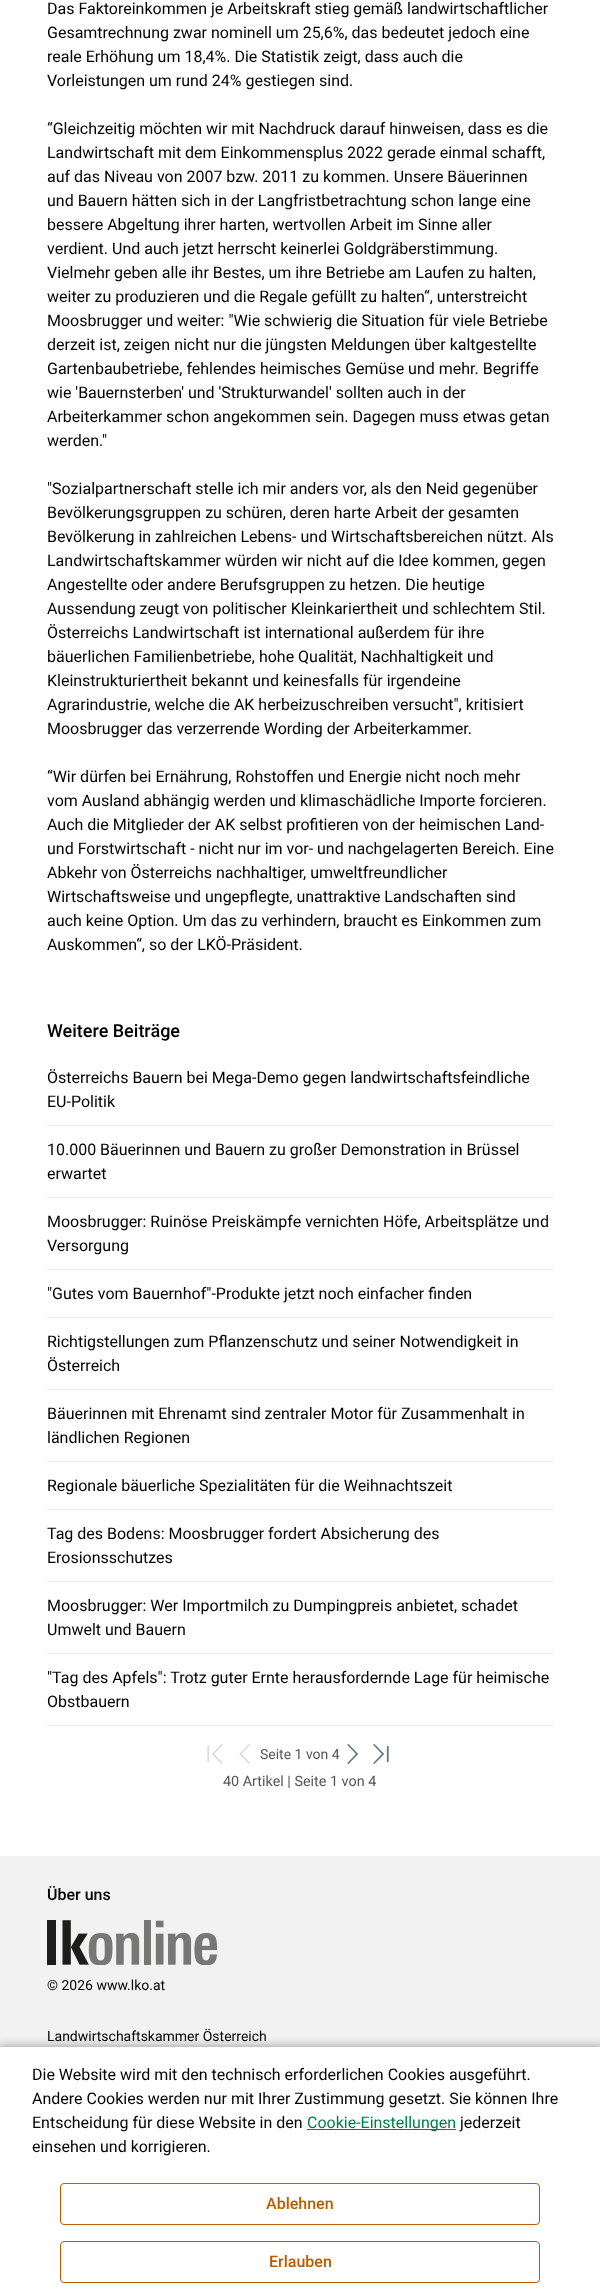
async function draw(canvas) {
	canvas.width = 600;
	canvas.height = 2291;
	const c = canvas.getContext('2d');
	c.miterLimit = 4;
	c.fontKerning = 'normal';
	async function loadImage(src) {
		const img = new Image();
		img.src = src;
		await img.decode();
		return img;
	}

	c.fillStyle = '#fff';
	c.fillRect(0, 0, 600, 2291);
	c.font = '16px Roboto';
	c.fillStyle = '#000';
	for (const [text, x, y] of [
		['Das Faktoreinkommen je Arbeitskraft stieg gemäß landwirtschaftlicher', 47, 14],
		['Gesamtrechnung zwar nominell um 25,6%, das bedeutet jedoch eine', 47, 38],
		['reale Erhöhung um 18,4%. Die Statistik zeigt, dass auch die', 47, 62],
		['Vorleistungen um rund 24% gestiegen sind.', 47, 86],
		['“Gleichzeitig möchten wir mit Nachdruck darauf hinweisen, dass es die', 47, 134],
		['Landwirtschaft mit dem Einkommensplus 2022 gerade einmal schafft,', 47, 158],
		['auf das Niveau von 2007 bzw. 2011 zu kommen. Unsere Bäuerinnen', 47, 182],
		['und Bauern hätten sich in der Langfristbetrachtung schon lange eine', 47, 206],
		['bessere Abgeltung ihrer harten, wertvollen Arbeit im Sinne aller', 47, 230],
		['verdient. Und auch jetzt herrscht keinerlei Goldgräberstimmung.', 47, 254],
		['Vielmehr geben alle ihr Bestes, um ihre Betriebe am Laufen zu halten,', 47, 278],
		['weiter zu produzieren und die Regale gefüllt zu halten“, unterstreicht', 47, 302],
		['Moosbrugger und weiter: "Wie schwierig die Situation für viele Betriebe', 47, 326],
		['derzeit ist, zeigen nicht nur die jüngsten Meldungen über kaltgestellte', 47, 350],
		['Gartenbaubetriebe, fehlendes heimisches Gemüse und mehr. Begriffe', 47, 374],
		['wie \'Bauernsterben\' und \'Strukturwandel\' sollten auch in der', 47, 398],
		['Arbeiterkammer schon angekommen sein. Dagegen muss etwas getan', 47, 422],
		['werden."', 47, 446],
		['"Sozialpartnerschaft stelle ich mir anders vor, als den Neid gegenüber', 47, 494],
		['Bevölkerungsgruppen zu schüren, deren harte Arbeit der gesamten', 47, 518],
		['Bevölkerung in zahlreichen Lebens- und Wirtschaftsbereichen nützt. Als', 47, 542],
		['Landwirtschaftskammer würden wir nicht auf die Idee kommen, gegen', 47, 566],
		['Angestellte oder andere Berufsgruppen zu hetzen. Die heutige', 47, 590],
		['Aussendung zeugt von politischer Kleinkariertheit und schlechtem Stil.', 47, 614],
		['Österreichs Landwirtschaft ist international außerdem für ihre', 47, 638],
		['bäuerlichen Familienbetriebe, hohe Qualität, Nachhaltigkeit und', 47, 662],
		['Kleinstrukturiertheit bekannt und keinesfalls für irgendeine', 47, 686],
		['Agrarindustrie, welche die AK herbeizuschreiben versucht", kritisiert', 47, 710],
		['Moosbrugger das verzerrende Wording der Arbeiterkammer.', 47, 734],
		['“Wir dürfen bei Ernährung, Rohstoffen und Energie nicht noch mehr', 47, 782],
		['vom Ausland abhängig werden und klimaschädliche Importe forcieren.', 47, 806],
		['Auch die Mitglieder der AK selbst profitieren von der heimischen Land-', 47, 830],
		['und Forstwirtschaft - nicht nur im vor- und nachgelagerten Bereich. Eine', 47, 854],
		['Abkehr von Österreichs nachhaltiger, umweltfreundlicher', 47, 878],
		['Wirtschaftsweise und ungepflegte, unattraktive Landschaften sind', 47, 902],
		['auch keine Option. Um das zu verhindern, braucht es Einkommen zum', 47, 926],
		['Auskommen“, so der LKÖ-Präsident.', 47, 950],
	]) {
		c.fillText(text, x, y);
	}
	c.font = '500 18px Roboto';
	c.fillText('Weitere Beiträge', 47, 1037);
	c.font = '16px Roboto';
	c.fillText('Österreichs Bauern bei Mega-Demo gegen landwirtschaftsfeindliche', 47, 1083);
	c.fillText('EU-Politik', 47, 1107);
	c.fillStyle = '#ececec';
	c.fillRect(47, 1125, 507, 1);
	c.fillStyle = '#000';
	c.fillText('10.000 Bäuerinnen und Bauern zu großer Demonstration in Brüssel', 47, 1155);
	c.fillText('erwartet', 47, 1179);
	c.fillStyle = '#ececec';
	c.fillRect(47, 1197, 507, 1);
	c.fillStyle = '#000';
	c.fillText('Moosbrugger: Ruinöse Preiskämpfe vernichten Höfe, Arbeitsplätze und', 47, 1227);
	c.fillText('Versorgung', 47, 1251);
	c.fillStyle = '#ececec';
	c.fillRect(47, 1269, 507, 1);
	c.fillStyle = '#000';
	c.fillText('"Gutes vom Bauernhof"-Produkte jetzt noch einfacher finden', 47, 1299);
	c.fillStyle = '#ececec';
	c.fillRect(47, 1317, 507, 1);
	c.fillStyle = '#000';
	c.fillText('Richtigstellungen zum Pflanzenschutz und seiner Notwendigkeit in', 47, 1347);
	c.fillText('Österreich', 47, 1371);
	c.fillStyle = '#ececec';
	c.fillRect(47, 1389, 507, 1);
	c.fillStyle = '#000';
	c.fillText('Bäuerinnen mit Ehrenamt sind zentraler Motor für Zusammenhalt in', 47, 1419);
	c.fillText('ländlichen Regionen', 47, 1443);
	c.fillStyle = '#ececec';
	c.fillRect(47, 1461, 507, 1);
	c.fillStyle = '#000';
	c.fillText('Regionale bäuerliche Spezialitäten für die Weihnachtszeit', 47, 1491);
	c.fillStyle = '#ececec';
	c.fillRect(47, 1509, 507, 1);
	c.fillStyle = '#000';
	c.fillText('Tag des Bodens: Moosbrugger fordert Absicherung des', 47, 1539);
	c.fillText('Erosionsschutzes', 47, 1563);
	c.fillStyle = '#ececec';
	c.fillRect(47, 1581, 507, 1);
	c.fillStyle = '#000';
	c.fillText('Moosbrugger: Wer Importmilch zu Dumpingpreis anbietet, schadet', 47, 1611);
	c.fillText('Umwelt und Bauern', 47, 1635);
	c.fillStyle = '#ececec';
	c.fillRect(47, 1653, 507, 1);
	c.fillStyle = '#000';
	c.fillText('"Tag des Apfels": Trotz guter Ernte herausfordernde Lage für heimische', 47, 1683);
	c.fillText('Obstbauern', 47, 1707);
	c.fillStyle = '#ececec';
	c.fillRect(47, 1725, 507, 1);
	c.drawImage(await loadImage('img1.png'), 207, 1744, 16, 20);
	c.drawImage(await loadImage('img2.png'), 239, 1744, 11, 20);
	c.font = '14px Roboto';
	c.fillStyle = '#555';
	c.fillText('Seite 1 von 4', 260, 1759);
	c.drawImage(await loadImage('img3.png'), 347, 1744, 11, 20);
	c.drawImage(await loadImage('img4.png'), 373, 1744, 16, 20);
	c.font = '14.4px Roboto';
	c.fillText('40 Artikel | Seite 1 von 4', 223, 1786);
	c.fillStyle = '#f2f2f2';
	c.fillRect(0, 1856, 600, 191);
	c.font = '500 16px Roboto';
	c.fillStyle = '#000';
	c.fillText('Über uns', 47, 1900);
	c.drawImage(await loadImage('img5.png'), 47, 1920, 170, 45);
	c.font = '14px Roboto';
	c.fillText('© 2026 www.lko.at', 47, 1990);
	c.fillText('Landwirtschaftskammer Österreich', 47, 2041);
	c.fillStyle = '#00000059';
	c.filter = 'blur(5px)';
	c.beginPath();
	c.rect(-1, 2046, 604, 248);
	c.fill();
	c.filter = 'none';
	c.fillStyle = '#fff';
	c.fillRect(0, 2047, 600, 244);
	c.font = '16px Roboto';
	c.fillStyle = '#000';
	for (const [text, x, y] of [
		['Die Website wird mit den technisch erforderlichen Cookies ausgeführt.', 32, 2080],
		['Andere Cookies werden nur mit Ihrer Zustimmung gesetzt. Sie können Ihre', 32, 2104],
		['Entscheidung für diese Website in den', 32, 2128],
	]) {
		c.fillText(text, x, y);
	}
	c.fillStyle = '#007e46';
	c.fillRect(307, 2129, 149, 1);
	c.fillText('Cookie-Einstellungen', 307, 2128);
	c.fillStyle = '#000';
	c.fillText('jederzeit', 460, 2128);
	c.fillText('einsehen und korrigieren.', 32, 2152);
	c.beginPath();
	c.roundRect(60.5, 2183.5, 479, 41, 3.5);
	c.strokeStyle = '#ba5d00';
	c.stroke();
	c.font = '500 16px Roboto';
	c.fillStyle = '#ba5d00';
	c.fillText('Ablehnen', 266, 2209);
	c.beginPath();
	c.roundRect(60.5, 2241.5, 479, 41, 3.5);
	c.stroke();
	c.fillText('Erlauben', 269, 2267);
}

draw(document.querySelector('canvas'));
